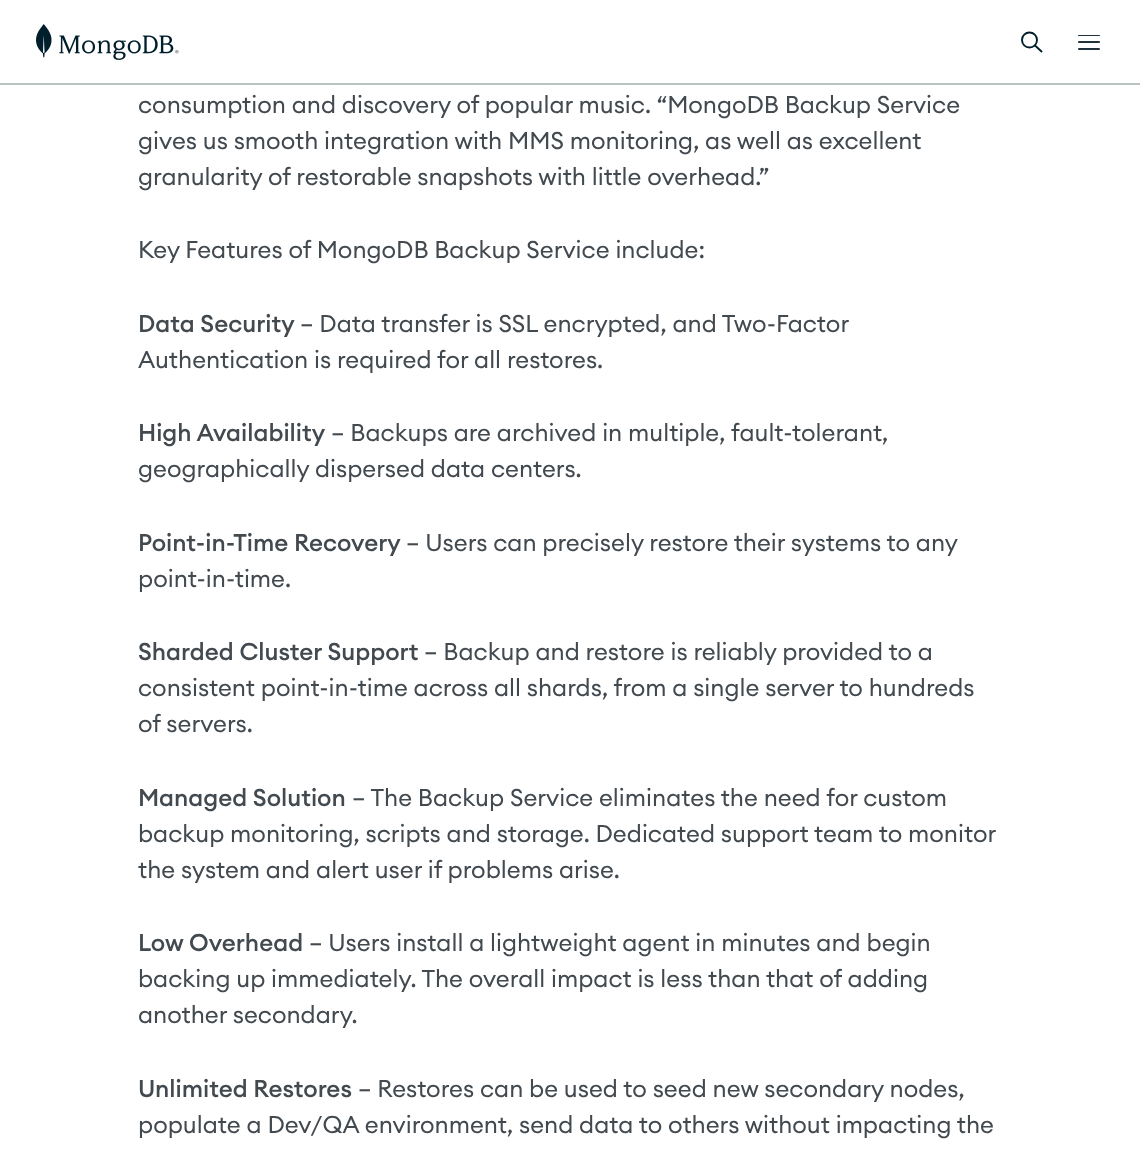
async function draw(canvas) {
	canvas.width = 1140;
	canvas.height = 1154;
	const c = canvas.getContext('2d');
	c.miterLimit = 4;
	c.fontKerning = 'normal';
	async function loadImage(src) {
		const img = new Image();
		img.src = src;
		await img.decode();
		return img;
	}

	c.fillStyle = '#fff';
	c.fillRect(0, 0, 1140, 1154);
	c.fillStyle = '#b8c4c2';
	c.fillRect(0, 83, 1140, 2);
	c.drawImage(await loadImage('img1.png'), 36, 24, 143, 36);
	c.beginPath();
	c.arc(1029.5, 40, 7.5, 0, 2 * Math.PI);
	c.strokeStyle = '#001e2b';
	c.lineWidth = 1.9;
	c.stroke();
	c.beginPath();
	c.moveTo(1041.5, 51.5);
	c.lineTo(1035, 45.5);
	c.lineCap = 'round';
	c.stroke();
	c.fillStyle = '#21313c';
	c.beginPath();
	c.roundRect(1078, 35, 22, 1, 0.5);
	c.fill();
	c.beginPath();
	c.roundRect(1078, 41, 22, 2, 1);
	c.fill();
	c.beginPath();
	c.roundRect(1078, 48, 22, 2, 1);
	c.fill();
	c.font = '24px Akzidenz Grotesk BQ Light';
	c.fillStyle = '#42494f';
	for (const [text, x, y] of [
		['consumption and discovery of popular music. “MongoDB Backup Service', 138, 113],
		['gives us smooth integration with MMS monitoring, as well as excellent', 138, 149],
		['granularity of restorable snapshots with little overhead.”', 138, 185],
		['Key Features of MongoDB Backup Service include:', 138, 258],
	]) {
		c.fillText(text, x, y);
	}
	c.font = '500 24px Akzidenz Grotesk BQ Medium';
	c.fillText('Data Security', 138, 332);
	c.font = '24px Akzidenz Grotesk BQ Light';
	c.fillText('– Data transfer is SSL encrypted, and Two-Factor', 300, 332);
	c.fillText('Authentication is required for all restores.', 138, 368);
	c.font = '500 24px Akzidenz Grotesk BQ Medium';
	c.fillText('High Availability', 138, 441);
	c.font = '24px Akzidenz Grotesk BQ Light';
	c.fillText('– Backups are archived in multiple, fault-tolerant,', 331, 441);
	c.fillText('geographically dispersed data centers.', 138, 477);
	c.font = '500 24px Akzidenz Grotesk BQ Medium';
	c.fillText('Point-in-Time Recovery', 138, 551);
	c.font = '24px Akzidenz Grotesk BQ Light';
	c.fillText('– Users can precisely restore their systems to any', 406, 551);
	c.fillText('point-in-time.', 138, 587);
	c.font = '500 24px Akzidenz Grotesk BQ Medium';
	c.fillText('Sharded Cluster Support', 138, 660);
	c.font = '24px Akzidenz Grotesk BQ Light';
	for (const [text, x, y] of [
		['– Backup and restore is reliably provided to a', 424, 660],
		['consistent point-in-time across all shards, from a single server to hundreds', 138, 696],
		['of servers.', 138, 732],
	]) {
		c.fillText(text, x, y);
	}
	c.font = '500 24px Akzidenz Grotesk BQ Medium';
	c.fillText('Managed Solution', 138, 806);
	c.font = '24px Akzidenz Grotesk BQ Light';
	for (const [text, x, y] of [
		['– The Backup Service eliminates the need for custom', 352, 806],
		['backup monitoring, scripts and storage. Dedicated support team to monitor', 138, 842],
		['the system and alert user if problems arise.', 138, 878],
	]) {
		c.fillText(text, x, y);
	}
	c.font = '500 24px Akzidenz Grotesk BQ Medium';
	c.fillText('Low Overhead', 138, 951);
	c.font = '24px Akzidenz Grotesk BQ Light';
	for (const [text, x, y] of [
		['– Users install a lightweight agent in minutes and begin', 309, 951],
		['backing up immediately. The overall impact is less than that of adding', 138, 987],
		['another secondary.', 138, 1023],
	]) {
		c.fillText(text, x, y);
	}
	c.font = '500 24px Akzidenz Grotesk BQ Medium';
	c.fillText('Unlimited Restores', 138, 1097);
	c.font = '24px Akzidenz Grotesk BQ Light';
	c.fillText('– Restores can be used to seed new secondary nodes,', 358, 1097);
	c.fillText('populate a Dev/QA environment, send data to others without impacting the', 138, 1133);
}

draw(document.querySelector('canvas'));
